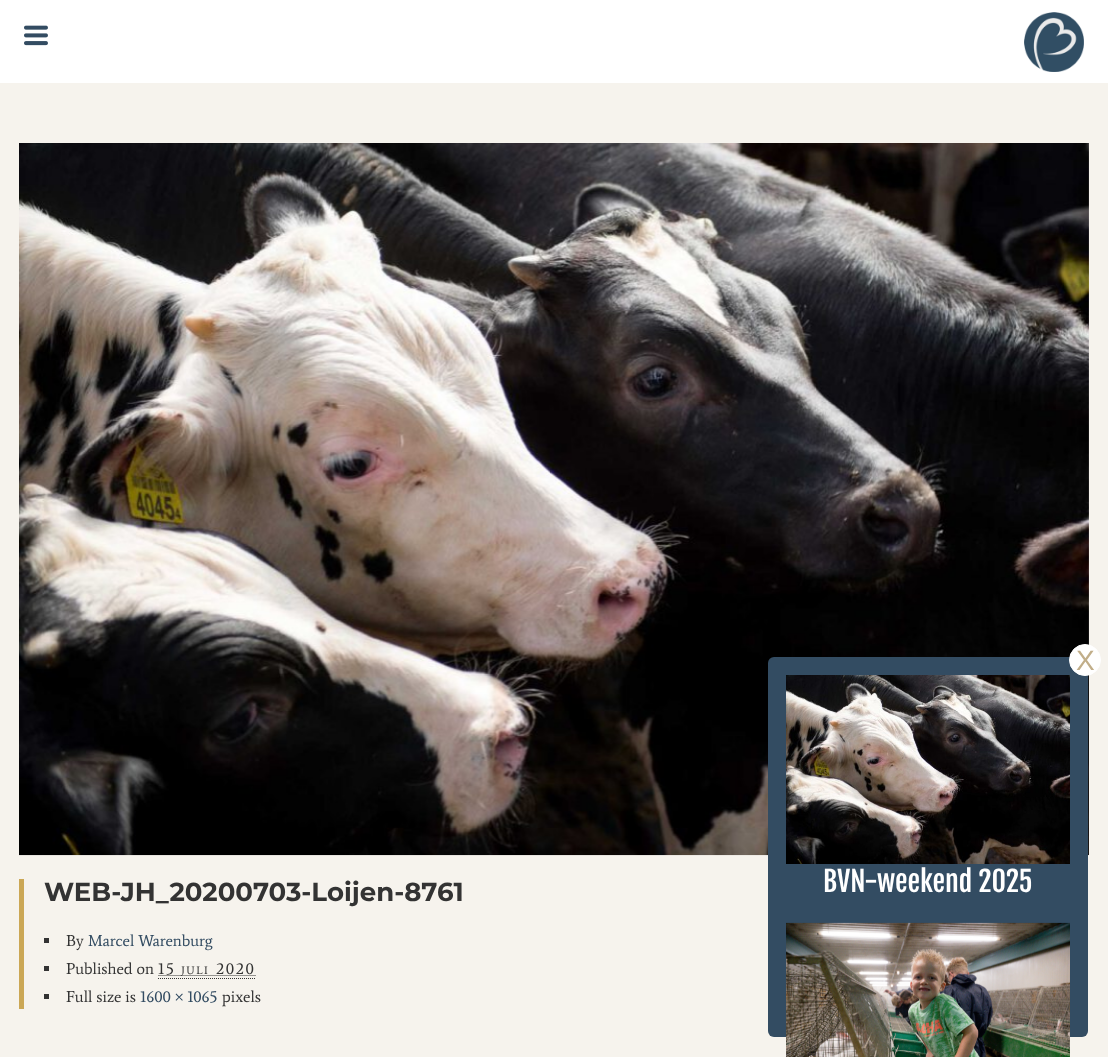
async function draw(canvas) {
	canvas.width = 1108;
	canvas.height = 1057;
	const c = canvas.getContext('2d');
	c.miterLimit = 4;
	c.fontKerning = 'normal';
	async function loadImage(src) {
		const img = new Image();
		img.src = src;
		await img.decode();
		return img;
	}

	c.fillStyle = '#fff';
	c.fillRect(0, 0, 1108, 1057);
	c.fillStyle = '#f6f3ed';
	c.fillRect(0, 83, 1108, 974);
	c.drawImage(await loadImage('img5.png'), 19, 143, 1070, 713);
	c.fillStyle = '#334c62';
	c.beginPath();
	c.roundRect(768, 657, 320, 380, 6);
	c.fill();
	c.drawImage(await loadImage('img1.png'), 786, 675, 284, 189);
	c.fillStyle = '#fff';
	c.beginPath();
	c.arc(1085, 660, 15.5, 0, 2 * Math.PI);
	c.fill();
	c.strokeStyle = '#fff';
	c.stroke();
	c.font = '28px Liberation Sans';
	c.fillStyle = '#c1ae89';
	c.fillText('X', 1076, 670);
	c.font = '28px Fjalla One';
	c.fillStyle = '#fff';
	c.fillText('BVN-weekend 2025', 823, 892);
	c.drawImage(await loadImage('img2.png'), 786, 922, 284, 135);
	c.drawImage(await loadImage('img3.png'), 24, 25, 24, 21);
	c.drawImage(await loadImage('img4.png'), 1024, 12, 60, 60);
	c.fillStyle = '#cba755';
	c.fillRect(19, 879, 5, 130);
	c.font = 'bold 26px Montserrat';
	c.fillStyle = '#333';
	c.fillText('WEB-JH_20200703-Loijen-8761', 44, 901);
	c.fillRect(44, 938, 5, 5);
	c.font = '16px Average';
	c.fillText('By', 66, 946);
	c.fillStyle = '#334c62';
	c.fillText('Marcel Warenburg', 88, 946);
	c.fillStyle = '#333';
	c.fillRect(44, 966, 5, 5);
	c.fillText('Published on', 66, 974);
	c.letterSpacing = '1.5px';
	c.fillText('15', 158, 974);
	c.beginPath();
	c.moveTo(158.5, 975.5);
	c.lineTo(255.5, 975.5);
	c.strokeStyle = '#333';
	c.setLineDash([1, 1]);
	c.stroke();
	c.font = '11px Average';
	c.fillText('JULI', 181, 974);
	c.beginPath();
	c.moveTo(158, 978.5);
	c.lineTo(255, 978.5);
	c.stroke();
	c.font = '16px Average';
	c.fillText('2020', 216, 974);
	c.fillRect(44, 994, 5, 5);
	c.letterSpacing = '0px';
	c.fillText('Full size is', 66, 1002);
	c.fillStyle = '#334c62';
	c.fillText('1600 × 1065', 140, 1002);
	c.fillStyle = '#333';
	c.fillText('pixels', 222, 1002);
}

draw(document.querySelector('canvas'));
